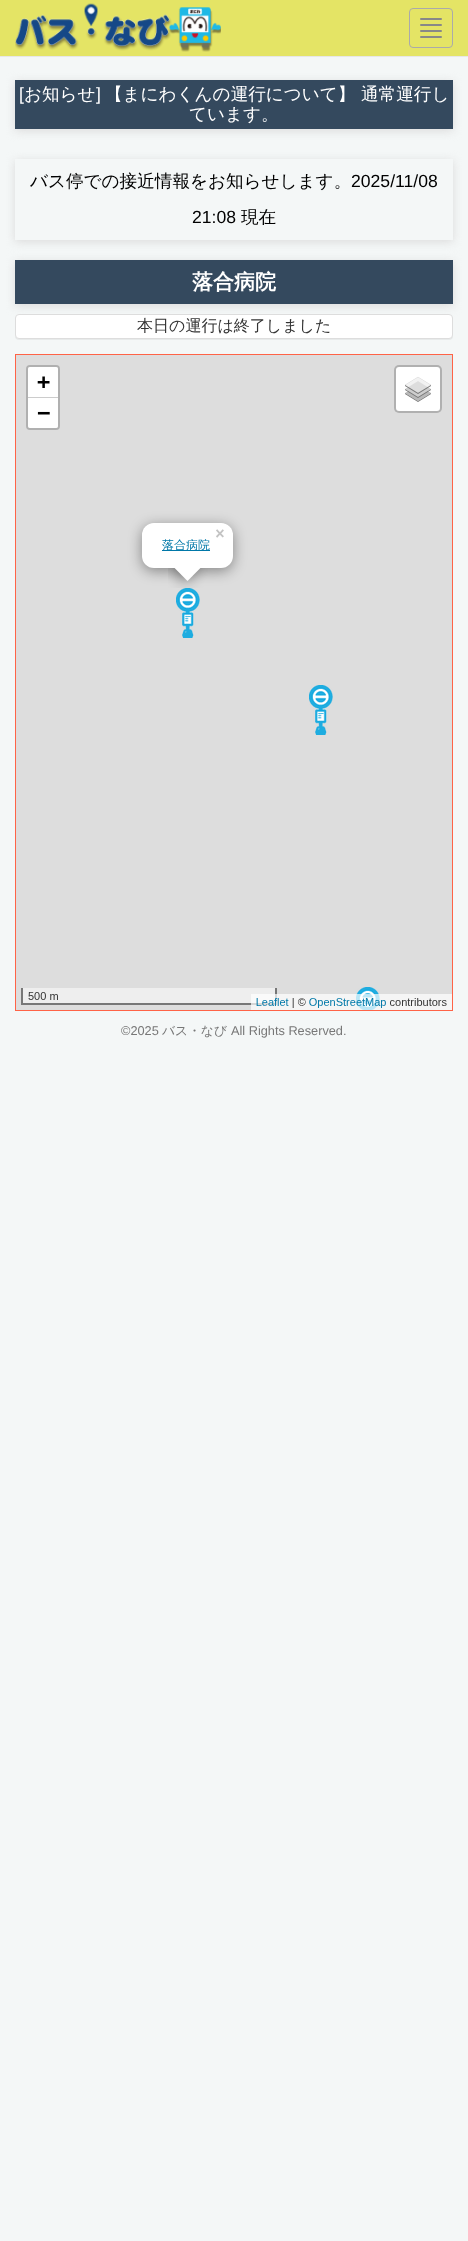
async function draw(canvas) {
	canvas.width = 468;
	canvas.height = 2241;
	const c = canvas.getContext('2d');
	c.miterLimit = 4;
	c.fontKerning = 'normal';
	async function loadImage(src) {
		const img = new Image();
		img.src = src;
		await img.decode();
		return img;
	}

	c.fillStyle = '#f4f7f7';
	c.fillRect(0, 0, 468, 2241);
	c.fillStyle = '#e4e465';
	c.fillRect(0, 0, 468, 56);
	c.fillStyle = '#e7e7e7';
	c.fillRect(0, 56, 468, 1);
	c.drawImage(await loadImage('img1.png'), 15, 3, 206, 49);
	c.beginPath();
	c.roundRect(409.5, 8.5, 43, 39, 3.5);
	c.strokeStyle = '#aaa';
	c.stroke();
	c.fillStyle = '#888';
	c.beginPath();
	c.roundRect(420, 18, 22, 2, 1);
	c.fill();
	c.beginPath();
	c.roundRect(420, 24, 22, 2, 1);
	c.fill();
	c.beginPath();
	c.roundRect(420, 30, 22, 2, 1);
	c.fill();
	c.beginPath();
	c.roundRect(420, 36, 22, 2, 1);
	c.fill();
	c.fillStyle = '#dbdbdb';
	c.filter = 'blur(5px)';
	c.beginPath();
	c.rect(15, 82, 438, 49);
	c.fill();
	c.filter = 'none';
	c.fillStyle = '#34495e';
	c.fillRect(15, 80, 438, 49);
	c.font = '17.6px Liberation Sans';
	c.fillStyle = '#fff';
	c.fillText('[', 19, 100);
	c.font = '500 17.6px WenQuanYi Zen Hei';
	c.fillText('お知らせ', 24, 100);
	c.font = '17.6px Liberation Sans';
	c.fillText(']', 96, 100);
	c.font = '500 17.6px WenQuanYi Zen Hei';
	for (const [text, x, y] of [
		['【まにわくんの運行について】', 105, 100],
		['通常運行し', 361, 100],
		['ています。', 189, 120],
	]) {
		c.fillText(text, x, y);
	}
	c.save();
	c.beginPath();
	c.moveTo(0, 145);
	c.lineTo(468, 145);
	c.lineTo(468, 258);
	c.lineTo(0, 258);
	c.closePath();
	c.moveTo(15, 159);
	c.lineTo(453, 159);
	c.lineTo(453, 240);
	c.lineTo(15, 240);
	c.closePath();
	c.clip('evenodd');
	c.fillStyle = '#dbdbdb';
	c.filter = 'blur(5px)';
	c.beginPath();
	c.rect(15, 161, 438, 81);
	c.fill();
	c.filter = 'none';
	c.restore();
	c.fillStyle = '#000';
	c.fillText('バス停での接近情報をお知らせします。', 30, 187);
	c.font = '17.6px Liberation Sans';
	c.fillText('2025/11/08', 351, 187);
	c.fillText('21:08', 192, 223);
	c.font = '500 17.6px WenQuanYi Zen Hei';
	c.fillText('現在', 241, 223);
	c.fillStyle = '#dbdbdb';
	c.filter = 'blur(5px)';
	c.beginPath();
	c.rect(15, 262, 438, 44);
	c.fill();
	c.filter = 'none';
	c.fillStyle = '#34495e';
	c.fillRect(15, 260, 438, 44);
	c.font = 'bold 21px WenQuanYi Zen Hei';
	c.fillStyle = '#fff';
	c.fillText('落合病院', 192, 289);
	c.fillStyle = '#0000000d';
	c.filter = 'blur(0.5px)';
	c.beginPath();
	c.roundRect(15, 315, 438, 25, 4);
	c.fill();
	c.filter = 'none';
	c.fillStyle = '#fff';
	c.beginPath();
	c.roundRect(15.5, 314.5, 437, 24, 3.5);
	c.fill();
	c.strokeStyle = '#ddd';
	c.stroke();
	c.font = '500 16px WenQuanYi Zen Hei';
	c.fillStyle = '#333';
	c.fillText('本日の運行は終了しました', 137, 331);
	c.drawImage(await loadImage('img2.png'), 15, 354, 438, 657);
	c.font = '12.75px Liberation Sans';
	c.fillStyle = '#777';
	c.fillText('©2025', 121, 1035);
	c.font = '500 12.75px WenQuanYi Zen Hei';
	c.fillText('バス・なび', 162, 1035);
	c.font = '12.75px Liberation Sans';
	c.fillText('All Rights Reserved.', 231, 1035);
}

draw(document.querySelector('canvas'));
